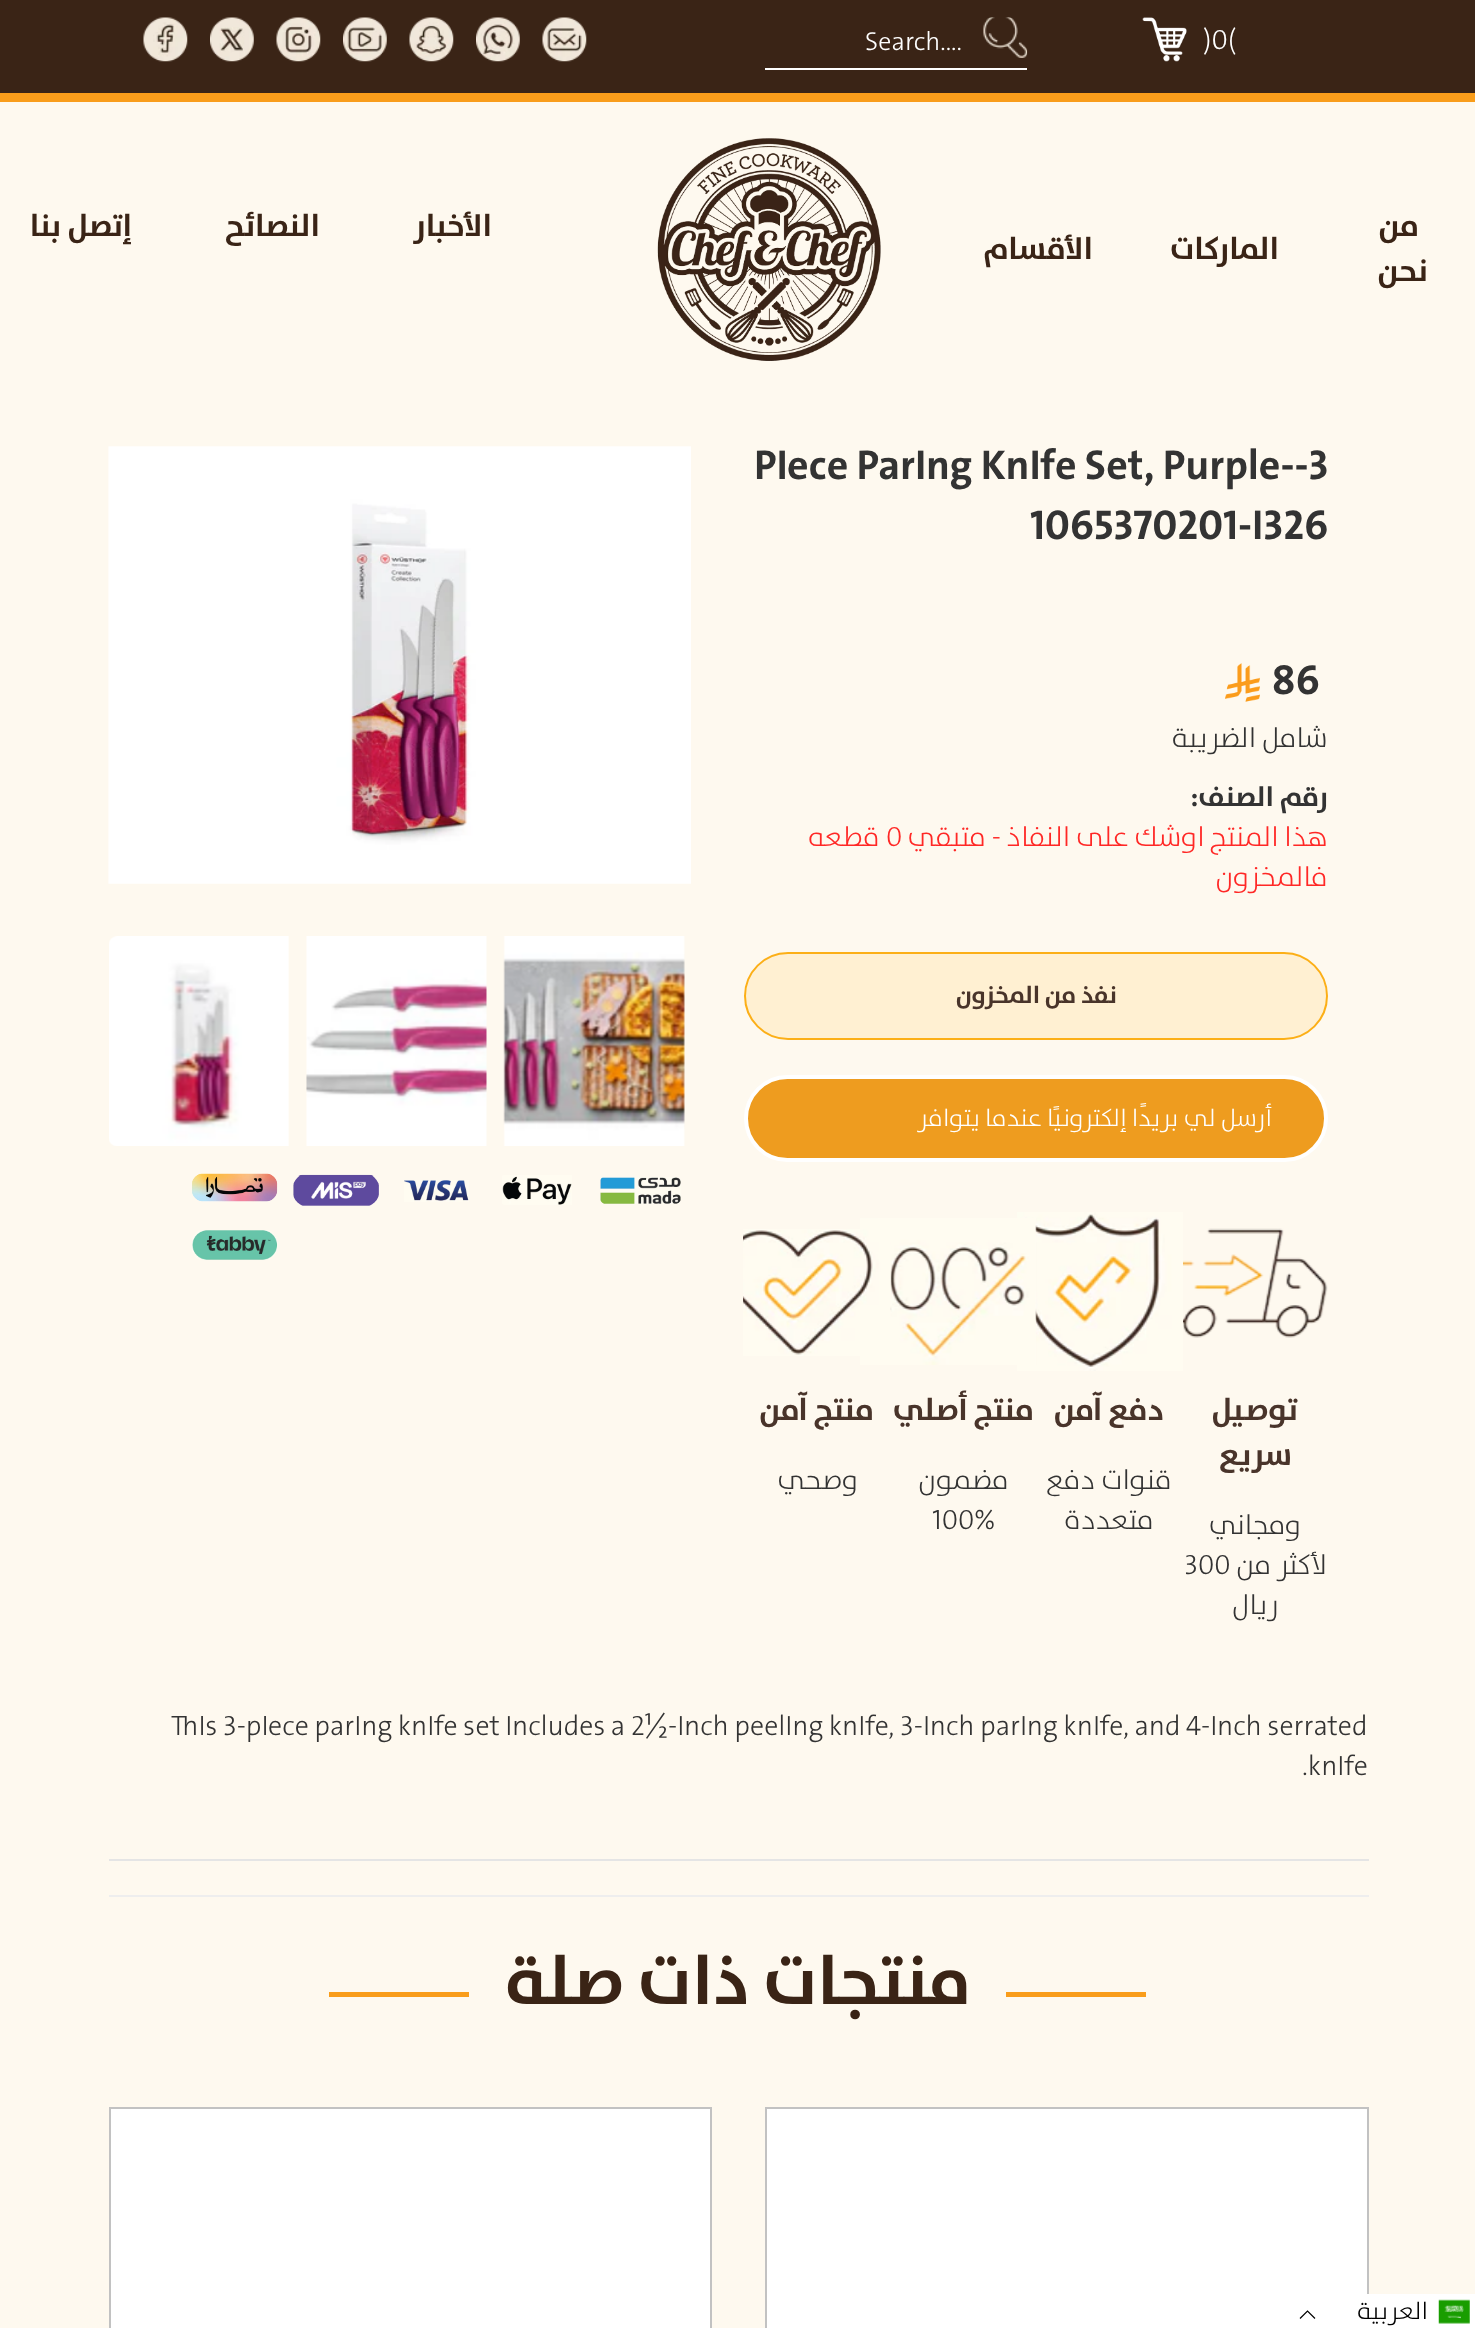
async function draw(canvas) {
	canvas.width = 1475;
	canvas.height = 2328;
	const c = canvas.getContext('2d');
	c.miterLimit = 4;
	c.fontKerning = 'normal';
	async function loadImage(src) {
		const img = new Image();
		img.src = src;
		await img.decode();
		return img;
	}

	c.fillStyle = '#fef9ef';
	c.fillRect(0, 0, 1475, 2328);
	c.fillStyle = '#3a2416';
	c.fillRect(0, 0, 1475, 93);
	c.fillStyle = '#f99d1b';
	c.fillRect(0, 93, 1475, 9);
	c.font = '300 28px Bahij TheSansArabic';
	c.fillStyle = '#fff';
	c.fillText(')0(', 1203, 49);
	c.drawImage(await loadImage('img1.png'), 1142, 17, 45, 45);
	c.drawImage(await loadImage('img2.png'), 983, 17, 45, 41);
	c.fillRect(765, 68, 262, 2);
	c.font = '300 26px Bahij TheSansArabic';
	c.fillText('Search....', 865, 50);
	c.drawImage(await loadImage('img3.png'), 542, 17, 45, 45);
	c.drawImage(await loadImage('img4.png'), 476, 17, 44, 45);
	c.drawImage(await loadImage('img5.png'), 409, 17, 45, 45);
	c.drawImage(await loadImage('img6.png'), 343, 17, 44, 45);
	c.drawImage(await loadImage('img7.png'), 276, 17, 45, 45);
	c.drawImage(await loadImage('img8.png'), 210, 17, 44, 45);
	c.drawImage(await loadImage('img9.png'), 143, 17, 45, 45);
	c.drawImage(await loadImage('img10.png'), 657, 138, 224, 223);
	c.direction = 'rtl';
	c.font = 'bold 31.5px Bahij TheSansArabic';
	c.fillStyle = '#3a2416';
	for (const [text, x, y] of [
		['من', 1419, 236],
		['نحن', 1428, 281],
		['الماركات', 1279, 259],
		['الأقسام', 1093, 259],
		['الأخبار', 492, 236],
		['النصائح', 320, 236],
		['إتصل بنا', 132, 236],
	]) {
		c.fillText(text, x, y);
	}
	c.direction = 'ltr';
	c.font = 'bold 42px Bahij TheSansArabic';
	c.fillStyle = '#333';
	for (const [text, x, y] of [
		['PIece ParIng KnIfe Set, Purple--3', 754, 479],
		['1065370201-I326', 1030, 539],
		['86', 1272, 694],
	]) {
		c.fillText(text, x, y);
	}
	c.drawImage(await loadImage('img11.png'), 1225, 663, 35, 39);
	c.direction = 'rtl';
	c.font = '300 28px Bahij TheSansArabic';
	c.fillText('شامل الضريبة', 1328, 747);
	c.font = 'bold 28px Bahij TheSansArabic';
	c.fillText('رقم الصنف:', 1328, 806);
	c.font = '300 28px Bahij TheSansArabic';
	c.fillStyle = '#ff2826';
	c.fillText('هذا المنتج اوشك على النفاذ - متبقي', 1328, 846);
	c.direction = 'ltr';
	c.fillText('0', 886, 846);
	c.direction = 'rtl';
	c.fillText('قطعه', 880, 846);
	c.fillText('فالمخزون', 1328, 886);
	c.fillStyle = '#fff0d2';
	c.beginPath();
	c.roundRect(745, 953, 582, 86, 43);
	c.fill();
	c.strokeStyle = '#fcaf17';
	c.lineWidth = 2;
	c.stroke();
	c.font = 'bold 24.5px Bahij TheSansArabic';
	c.fillStyle = '#49342a';
	c.fillText('نفذ من المخزون', 1117, 1003);
	c.fillStyle = '#ee9c1f';
	c.beginPath();
	c.roundRect(746, 1077, 580, 83, 41.5);
	c.fill();
	c.strokeStyle = '#fff';
	c.lineWidth = 4;
	c.stroke();
	c.letterSpacing = '1.75px';
	c.wordSpacing = '-1.5px';
	c.font = '300 24.5px Bahij TheSansArabic';
	c.fillStyle = '#fff';
	c.fillText('أرسل لي بريدًا إلكترونيًا عندما يتوافر', 1272, 1126);
	c.drawImage(await loadImage('img12.png'), 1183, 1228, 145, 110);
	c.letterSpacing = '0px';
	c.wordSpacing = '0px';
	c.font = 'bold 31.5px Bahij TheSansArabic';
	c.fillStyle = '#49342a';
	c.fillText('ﺗﻮﺻﻴﻞ', 1298, 1420);
	c.fillText('سريع', 1292, 1465);
	c.font = '300 28px Bahij TheSansArabic';
	c.fillStyle = '#333';
	c.fillText('ومجاني', 1301, 1534);
	c.fillText('لأكثر من', 1327, 1574);
	c.direction = 'ltr';
	c.fillText('300', 1184, 1574);
	c.direction = 'rtl';
	c.fillText('ريال', 1279, 1614);
	c.drawImage(await loadImage('img13.png'), 1017, 1212, 166, 159);
	c.font = 'bold 31.5px Bahij TheSansArabic';
	c.fillStyle = '#49342a';
	c.fillText('دﻓﻊ آﻣﻦ', 1164, 1420);
	c.font = '300 28px Bahij TheSansArabic';
	c.fillStyle = '#333';
	c.fillText('ﻗﻨﻮات دﻓﻊ', 1172, 1489);
	c.fillText('ﻣﺘﻌﺪدة', 1154, 1529);
	c.drawImage(await loadImage('img14.png'), 860, 1218, 177, 147);
	c.font = 'bold 31.5px Bahij TheSansArabic';
	c.fillStyle = '#49342a';
	c.fillText('منتج أصلي', 1034, 1420);
	c.font = '300 28px Bahij TheSansArabic';
	c.fillStyle = '#333';
	c.fillText('مضمون', 1009, 1489);
	c.direction = 'ltr';
	c.fillText('100%', 932, 1529);
	c.drawImage(await loadImage('img15.png'), 743, 1229, 148, 127);
	c.direction = 'rtl';
	c.font = 'bold 31.5px Bahij TheSansArabic';
	c.fillStyle = '#49342a';
	c.fillText('منتج آمن', 874, 1420);
	c.font = '300 28px Bahij TheSansArabic';
	c.fillStyle = '#333';
	c.fillText('وصحي', 858, 1489);
	c.drawImage(await loadImage('img16.png'), 108, 446, 583, 438);
	c.drawImage(await loadImage('img17.png'), 503, 936, 182, 210);
	c.drawImage(await loadImage('img18.png'), 306, 936, 181, 210);
	c.drawImage(await loadImage('img19.png'), 109, 936, 180, 210);
	c.drawImage(await loadImage('img20.png'), 600, 1177, 81, 27);
	c.drawImage(await loadImage('img21.png'), 502, 1175, 70, 30);
	c.drawImage(await loadImage('img22.png'), 404, 1180, 65, 22);
	c.drawImage(await loadImage('img23.png'), 293, 1174, 86, 32);
	c.drawImage(await loadImage('img24.png'), 192, 1173, 86, 29);
	c.drawImage(await loadImage('img25.png'), 192, 1230, 86, 30);
	c.direction = 'ltr';
	c.fillText('ThIs 3-pIece parIng knIfe set Includes a 2½-Inch peelIng knIfe, 3-Inch parIng knIfe, and 4-Inch serrated', 171, 1735);
	c.fillText('.knIfe', 1302, 1775);
	for (const [x, y, w, h, color] of [
		[109, 1859, 1260, 2, '#e5e5e5'],
		[109, 1895, 1260, 2, '#eee'],
		[1006, 1992, 140, 5, '#f99d1b'],
	]) {
		c.fillStyle = color;
		c.fillRect(x, y, w, h);
	}
	c.direction = 'rtl';
	c.font = 'bold 70px Bahij TheSansArabic';
	c.fillStyle = '#3a2416';
	c.fillText('منتجات ذات صلة', 971, 2004);
	c.fillStyle = '#f99d1b';
	c.fillRect(329, 1992, 140, 5);
	c.fillStyle = '#fff';
	c.beginPath();
	c.rect(766, 2108, 602, 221);
	c.fill();
	c.strokeStyle = '#c2c2c2';
	c.lineWidth = 2;
	c.stroke();
	c.beginPath();
	c.rect(110, 2108, 601, 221);
	c.fill();
	c.stroke();
	c.fillRect(1367, 2294, 108, 34);
	c.drawImage(await loadImage('img26.png'), 1438, 2299, 32, 25);
	c.font = '300 24.5px Bahij TheSansArabic';
	c.fillStyle = '#000';
	c.fillText('العربية', 1428, 2319);
	c.beginPath();
	c.moveTo(1315, 2318.5);
	c.lineTo(1307.5, 2311);
	c.lineTo(1300, 2318.5);
	c.strokeStyle = '#000';
	c.lineWidth = 1.2;
	c.stroke();
}

draw(document.querySelector('canvas'));
